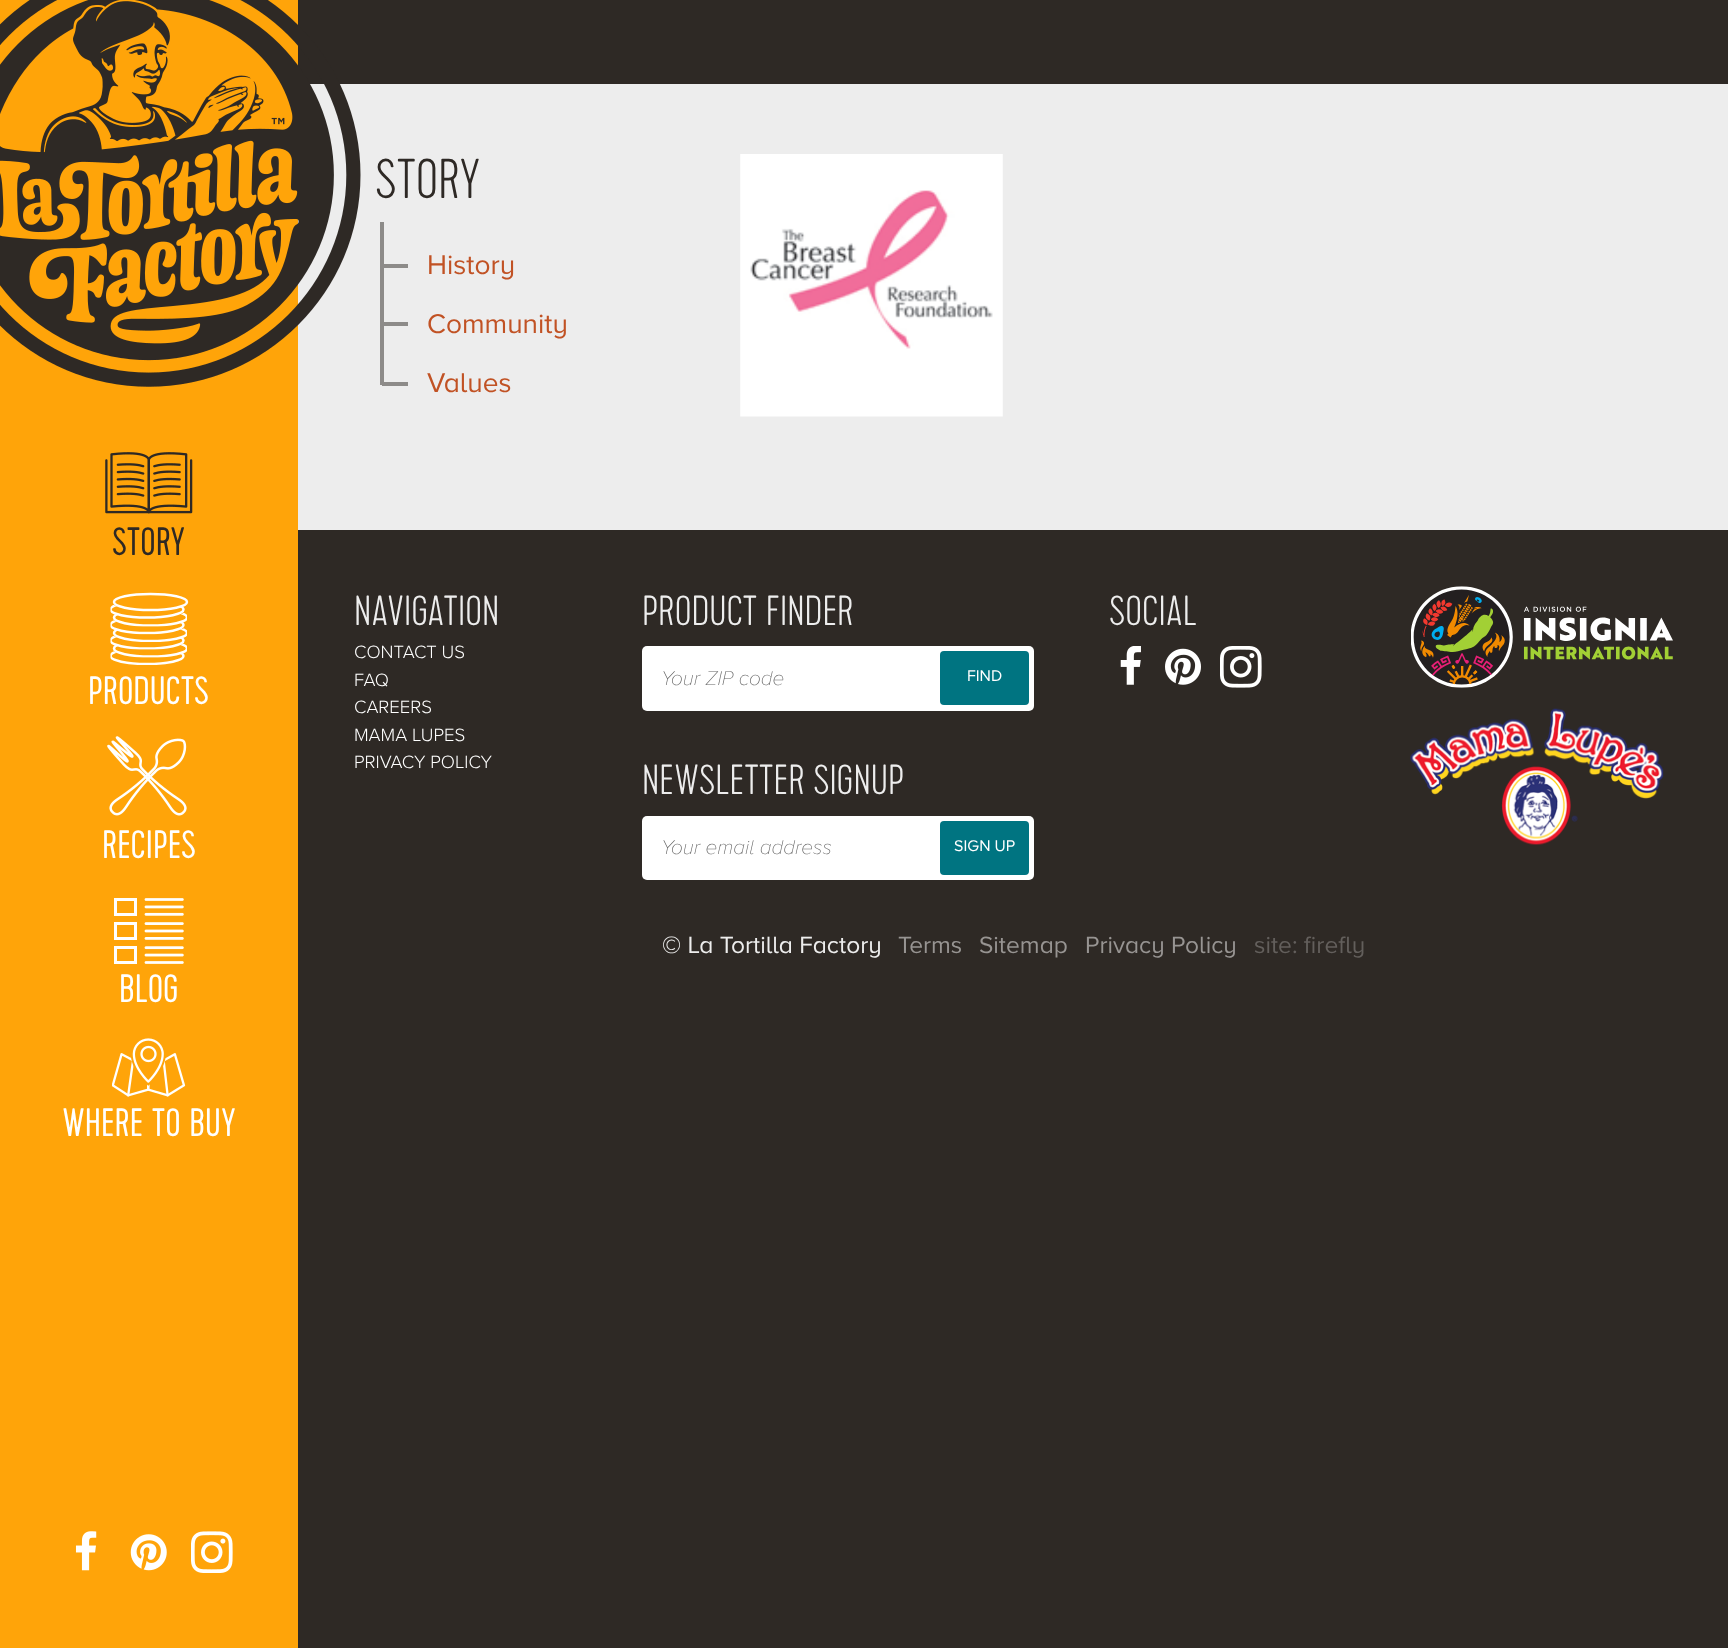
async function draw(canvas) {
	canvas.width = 1728;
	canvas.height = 1648;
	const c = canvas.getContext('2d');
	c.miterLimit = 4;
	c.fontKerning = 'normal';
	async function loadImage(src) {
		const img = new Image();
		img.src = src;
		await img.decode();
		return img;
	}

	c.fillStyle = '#2e2925';
	c.fillRect(0, 0, 1728, 1648);
	c.fillStyle = '#ededed';
	c.fillRect(298, 84, 1430, 446);
	c.font = '100 56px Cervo';
	c.fillStyle = '#2e2925';
	c.fillText('STORY', 375, 198);
	c.fillStyle = '#8d8b89';
	c.fillRect(380, 222, 4, 93);
	c.fillRect(382, 264, 26, 4);
	c.font = '28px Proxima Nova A';
	c.fillStyle = '#c15224';
	c.fillText('History', 427, 274);
	c.fillStyle = '#8d8b89';
	c.fillRect(382, 322, 26, 4);
	c.fillStyle = '#c15224';
	c.fillText('Community', 427, 333);
	c.fillStyle = '#8d8b89';
	c.fillRect(382, 382, 26, 4);
	c.fillRect(380, 315, 4, 70);
	c.fillStyle = '#c15224';
	c.fillText('Values', 427, 392);
	c.drawImage(await loadImage('img1.png'), 740, 154, 263, 263);
	c.fillStyle = '#ffa409';
	c.fillRect(0, 0, 298, 1648);
	c.drawImage(await loadImage('img2.png'), 0, 0, 361, 387);
	c.drawImage(await loadImage('img3.png'), 105, 452, 88, 62);
	c.font = '300 39.5px Cervo';
	c.fillStyle = '#2e2925';
	c.fillText('STORY', 112, 555);
	c.save();
	c.beginPath();
	c.moveTo(185, 650.5);
	c.bezierCurveTo(180, 654.5, 165.5, 657, 148.5, 657);
	c.bezierCurveTo(132, 657, 117.5, 654.5, 112.5, 650.5);
	c.lineTo(110.5, 650.5);
	c.lineTo(110.5, 665);
	c.lineTo(187, 665);
	c.lineTo(187, 650.5);
	c.closePath();
	c.clip();
	c.beginPath();
	c.ellipse(147, 656, 36.5, 8, 0, 0, 2 * Math.PI);
	c.strokeStyle = '#fff';
	c.lineWidth = 2.5;
	c.stroke();
	c.restore();
	c.save();
	c.beginPath();
	c.moveTo(185, 642.5);
	c.bezierCurveTo(180, 646.5, 165.5, 649.5, 148.5, 649.5);
	c.bezierCurveTo(132, 649.5, 117.5, 646.5, 112.5, 642.5);
	c.lineTo(110.5, 642.5);
	c.lineTo(110.5, 657.5);
	c.lineTo(187, 657.5);
	c.lineTo(187, 642.5);
	c.closePath();
	c.clip();
	c.beginPath();
	c.ellipse(150.5, 648.5, 36.5, 8, 0, 0, 2 * Math.PI);
	c.strokeStyle = '#fff';
	c.lineWidth = 2.5;
	c.stroke();
	c.restore();
	c.save();
	c.beginPath();
	c.moveTo(185, 635);
	c.bezierCurveTo(180, 639, 165.5, 642, 148.5, 642);
	c.bezierCurveTo(132, 642, 117.5, 639, 112.5, 635);
	c.lineTo(110.5, 635);
	c.lineTo(110.5, 649.5);
	c.lineTo(187, 649.5);
	c.lineTo(187, 635);
	c.closePath();
	c.clip();
	c.beginPath();
	c.ellipse(147, 640.5, 36.5, 8, 0, 0, 2 * Math.PI);
	c.strokeStyle = '#fff';
	c.lineWidth = 2.5;
	c.stroke();
	c.restore();
	c.save();
	c.beginPath();
	c.moveTo(185, 627.5);
	c.bezierCurveTo(180, 631, 165.5, 634, 148.5, 634);
	c.bezierCurveTo(132, 634, 117.5, 631, 112.5, 627.5);
	c.lineTo(110.5, 627.5);
	c.lineTo(110.5, 642);
	c.lineTo(187, 642);
	c.lineTo(187, 627.5);
	c.closePath();
	c.clip();
	c.beginPath();
	c.ellipse(150.5, 633, 36.5, 8, 0, 0, 2 * Math.PI);
	c.strokeStyle = '#fff';
	c.lineWidth = 2.5;
	c.stroke();
	c.restore();
	c.save();
	c.beginPath();
	c.moveTo(185, 619.5);
	c.bezierCurveTo(180, 623.5, 165.5, 626.5, 148.5, 626.5);
	c.bezierCurveTo(132, 626.5, 117.5, 623.5, 112.5, 619.5);
	c.lineTo(110.5, 619.5);
	c.lineTo(110.5, 634.5);
	c.lineTo(187, 634.5);
	c.lineTo(187, 619.5);
	c.closePath();
	c.clip();
	c.beginPath();
	c.ellipse(147, 625, 36.5, 8, 0, 0, 2 * Math.PI);
	c.strokeStyle = '#fff';
	c.lineWidth = 2.5;
	c.stroke();
	c.restore();
	c.save();
	c.beginPath();
	c.moveTo(185, 612);
	c.bezierCurveTo(180, 616, 165.5, 618.5, 148.5, 618.5);
	c.bezierCurveTo(132, 618.5, 117.5, 616, 112.5, 612);
	c.lineTo(110.5, 612);
	c.lineTo(110.5, 626.5);
	c.lineTo(187, 626.5);
	c.lineTo(187, 612);
	c.closePath();
	c.clip();
	c.beginPath();
	c.ellipse(150.5, 617.5, 36.5, 8, 0, 0, 2 * Math.PI);
	c.strokeStyle = '#fff';
	c.lineWidth = 2.5;
	c.stroke();
	c.restore();
	c.save();
	c.beginPath();
	c.moveTo(185, 604);
	c.bezierCurveTo(180, 608, 165.5, 611, 148.5, 611);
	c.bezierCurveTo(132, 611, 117.5, 608, 112.5, 604);
	c.lineTo(110.5, 604);
	c.lineTo(110.5, 619);
	c.lineTo(187, 619);
	c.lineTo(187, 604);
	c.closePath();
	c.clip();
	c.beginPath();
	c.ellipse(147, 609.5, 36.5, 8, 0, 0, 2 * Math.PI);
	c.strokeStyle = '#fff';
	c.lineWidth = 2.5;
	c.stroke();
	c.restore();
	c.beginPath();
	c.ellipse(150.5, 602, 36.5, 8, 0, 0, 2 * Math.PI);
	c.strokeStyle = '#fff';
	c.lineWidth = 2.5;
	c.stroke();
	c.fillStyle = '#fff';
	c.fillText('PRODUCTS', 88, 704);
	c.drawImage(await loadImage('img4.png'), 107, 736, 80, 80);
	c.fillText('RECIPES', 102, 858);
	c.drawImage(await loadImage('img5.png'), 114, 898, 70, 66);
	c.fillText('BLOG', 119, 1002);
	c.drawImage(await loadImage('img6.png'), 112, 1038, 74, 59);
	c.fillText('WHERE TO BUY', 62, 1136);
	c.drawImage(await loadImage('img7.png'), 75, 1531, 22, 40);
	c.drawImage(await loadImage('img8.png'), 130, 1534, 37, 37);
	c.drawImage(await loadImage('img9.png'), 191, 1531, 42, 42);
	c.font = '100 42px Cervo';
	c.fillStyle = '#ededed';
	c.fillText('NAVIGATION', 354, 625);
	c.font = '300 18.5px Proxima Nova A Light';
	c.fillStyle = '#fff';
	for (const [text, x, y] of [
		['CONTACT US', 354, 658],
		['FAQ', 354, 686],
		['CAREERS', 354, 713],
		['MAMA LUPES', 354, 741],
		['PRIVACY POLICY', 354, 768],
	]) {
		c.fillText(text, x, y);
	}
	c.font = '100 42px Cervo';
	c.fillStyle = '#ededed';
	c.fillText('PRODUCT FINDER', 642, 625);
	c.fillStyle = '#fff';
	c.beginPath();
	c.roundRect(642, 646, 392, 65, 5);
	c.fill();
	c.font = 'italic 100 20.75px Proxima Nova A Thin';
	c.fillStyle = '#666';
	c.fillText('Your ZIP code', 661, 685);
	c.fillStyle = '#007481';
	c.beginPath();
	c.roundRect(940, 651, 89, 54, 4);
	c.fill();
	c.font = '16px Proxima Nova A';
	c.fillStyle = '#fff';
	c.fillText('FIND', 967, 681);
	c.font = '100 42px Cervo';
	c.fillStyle = '#ededed';
	c.fillText('NEWSLETTER SIGNUP', 642, 794);
	c.fillStyle = '#fff';
	c.beginPath();
	c.roundRect(642, 816, 392, 64, 5);
	c.fill();
	c.font = 'italic 100 20.75px Proxima Nova A Thin';
	c.fillStyle = '#666';
	c.fillText('Your email address', 661, 854);
	c.fillStyle = '#007481';
	c.beginPath();
	c.roundRect(940, 821, 89, 54, 4);
	c.fill();
	c.font = '16px Proxima Nova A';
	c.fillStyle = '#fff';
	c.fillText('SIGN UP', 954, 851);
	c.font = '100 42px Cervo';
	c.fillStyle = '#ededed';
	c.fillText('SOCIAL', 1109, 625);
	c.drawImage(await loadImage('img10.png'), 1120, 646, 21, 39);
	c.drawImage(await loadImage('img11.png'), 1165, 648, 36, 37);
	c.drawImage(await loadImage('img12.png'), 1220, 646, 42, 42);
	c.drawImage(await loadImage('img13.png'), 1411, 586, 262, 102);
	c.drawImage(await loadImage('img14.png'), 1410, 708, 254, 137);
	c.font = '24.5px Proxima Nova A';
	c.fillText('© La Tortilla Factory', 662, 953);
	c.fillStyle = '#979492';
	for (const [text, x, y] of [
		['Terms', 898, 953],
		['Sitemap', 979, 953],
		['Privacy Policy', 1085, 953],
	]) {
		c.fillText(text, x, y);
	}
	c.fillStyle = '#635f5c';
	c.fillText('site: firefly', 1254, 953);
}

draw(document.querySelector('canvas'));
